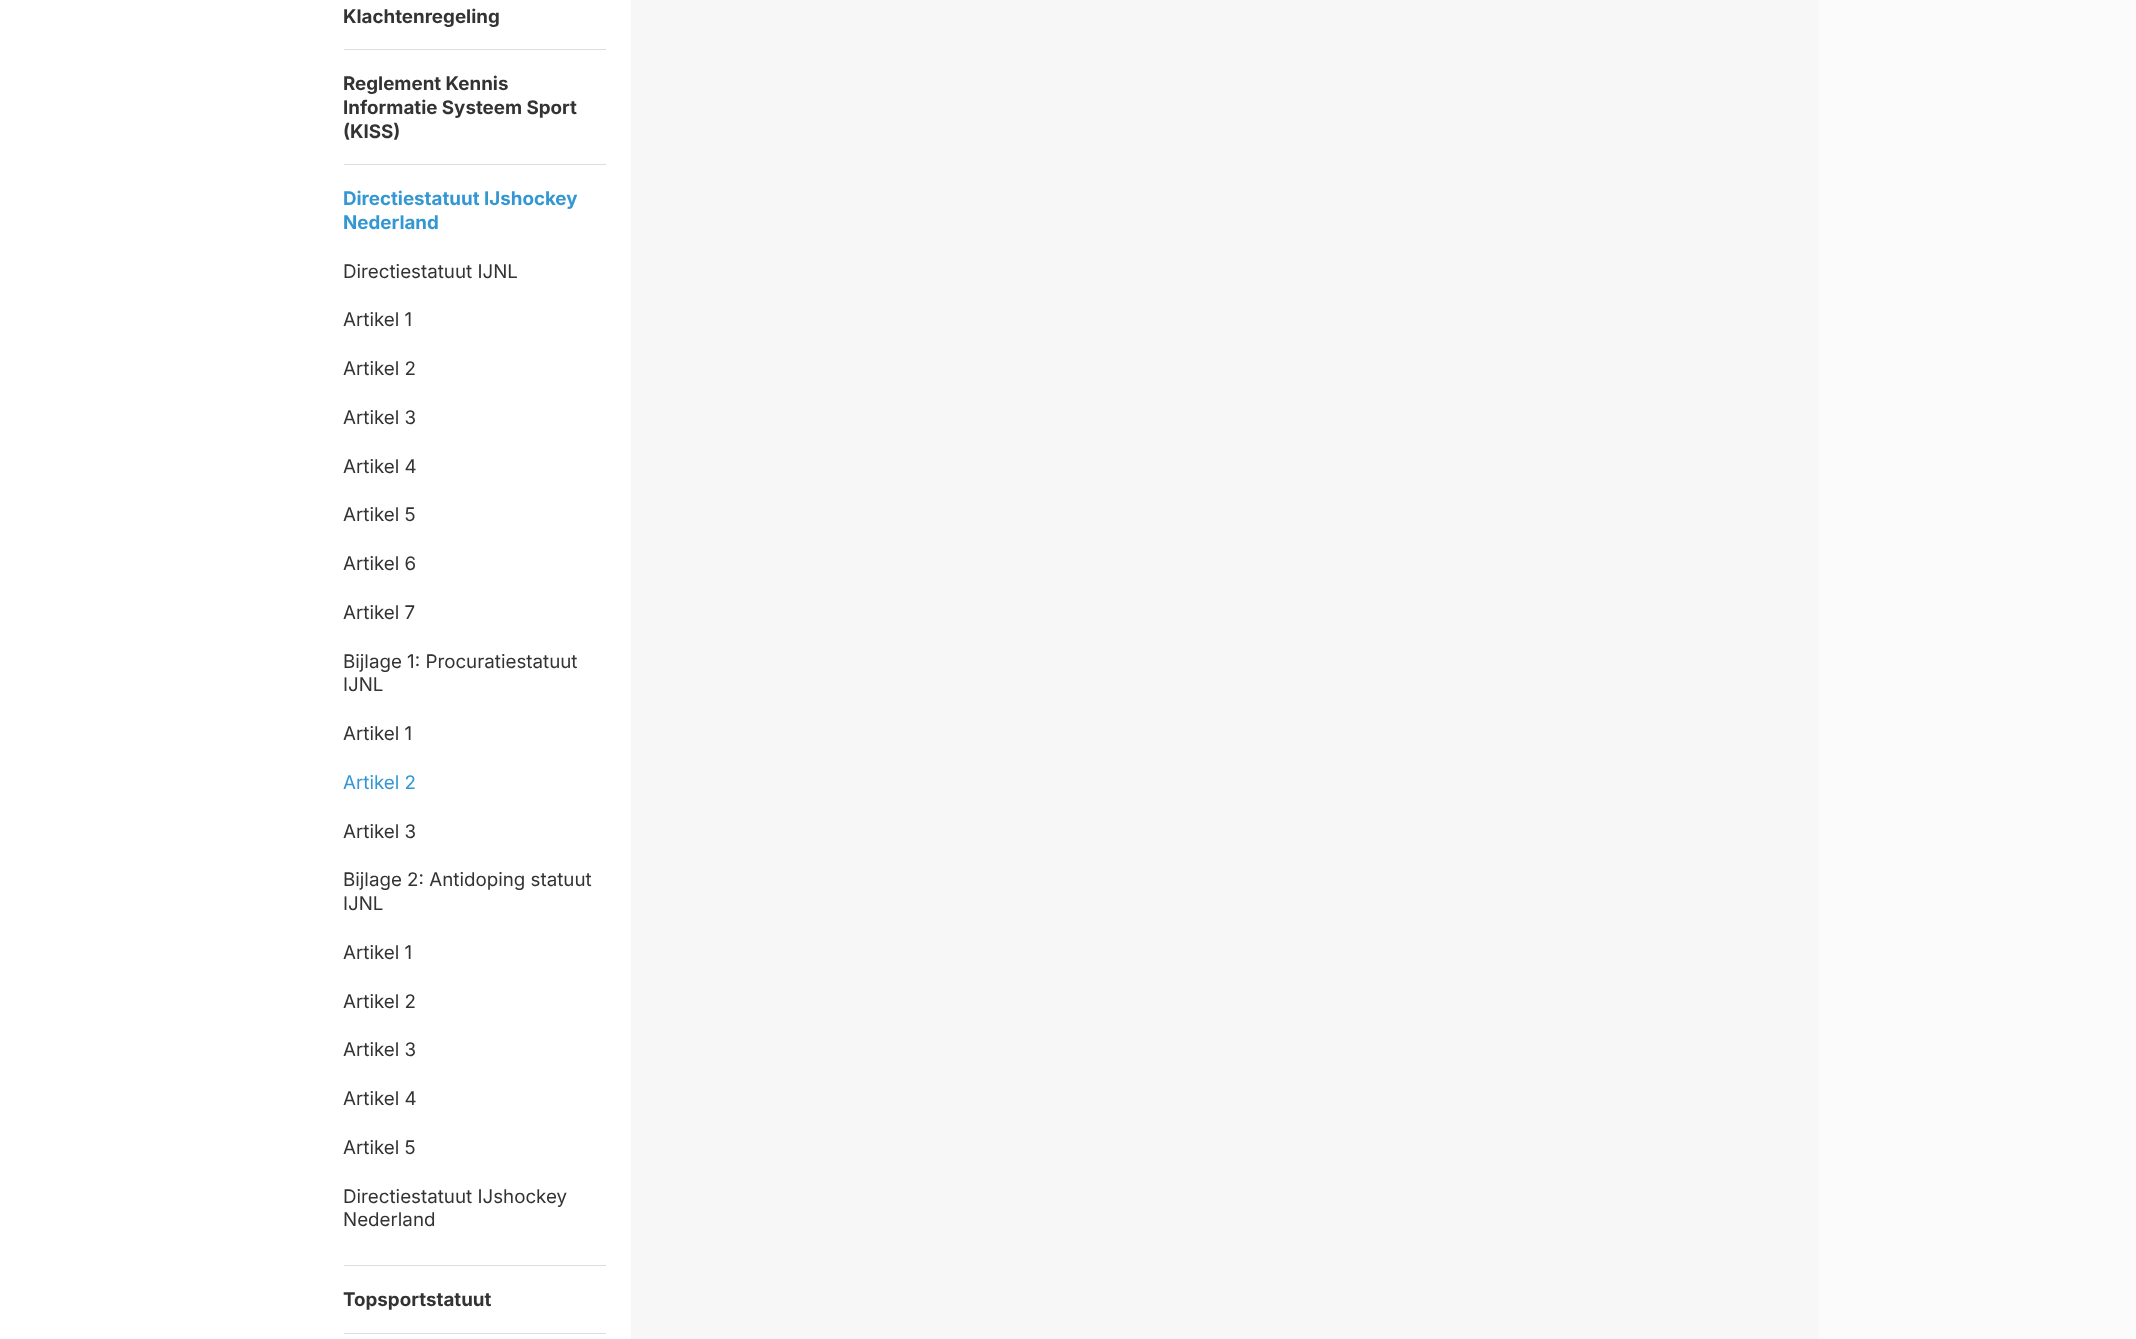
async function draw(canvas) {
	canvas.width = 2136;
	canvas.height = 1339;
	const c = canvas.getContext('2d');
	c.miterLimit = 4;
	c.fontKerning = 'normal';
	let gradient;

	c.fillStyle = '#fff';
	c.fillRect(0, 0, 2136, 1339);
	gradient = c.createLinearGradient(0, 228, 2136, 227);
	gradient.addColorStop(0, '#fff');
	gradient.addColorStop(0.5, '#fff');
	gradient.addColorStop(0.5, '#fbfbfb');
	gradient.addColorStop(1, '#fbfbfb');
	c.fillStyle = gradient;
	c.fillRect(1068, 0, 1068, 1339);
	c.fillStyle = '#f7f7f7';
	c.fillRect(631, 0, 1188, 1339);
	c.fillStyle = '#dadee4';
	c.fillRect(344, 49, 262, 1);
	c.font = 'bold 18.75px Inter';
	c.fillStyle = '#333';
	c.fillText('Klachtenregeling', 343, 23);
	c.fillStyle = '#dadee4';
	c.fillRect(344, 164, 262, 1);
	c.fillStyle = '#333';
	for (const [text, x, y] of [
		['Reglement Kennis', 343, 90],
		['Informatie Systeem Sport', 343, 114],
		['(KISS)', 343, 138],
	]) {
		c.fillText(text, x, y);
	}
	c.fillStyle = '#dadee4';
	c.fillRect(344, 1265, 262, 1);
	c.fillStyle = '#3397d3';
	c.fillText('Directiestatuut IJshockey', 343, 205);
	c.fillText('Nederland', 343, 229);
	c.font = '18.75px Inter';
	c.fillStyle = '#333';
	for (const [text, x, y] of [
		['Directiestatuut IJNL', 343, 278],
		['Artikel 1', 343, 326],
		['Artikel 2', 343, 375],
		['Artikel 3', 343, 424],
		['Artikel 4', 343, 473],
		['Artikel 5', 343, 521],
		['Artikel 6', 343, 570],
		['Artikel 7', 343, 619],
		['Bijlage 1: Procuratiestatuut', 343, 668],
		['IJNL', 343, 691],
		['Artikel 1', 343, 740],
	]) {
		c.fillText(text, x, y);
	}
	c.fillStyle = '#3397d3';
	c.fillText('Artikel 2', 343, 789);
	c.fillStyle = '#333';
	for (const [text, x, y] of [
		['Artikel 3', 343, 838],
		['Bijlage 2: Antidoping statuut', 343, 886],
		['IJNL', 343, 910],
		['Artikel 1', 343, 959],
		['Artikel 2', 343, 1008],
		['Artikel 3', 343, 1056],
		['Artikel 4', 343, 1105],
		['Artikel 5', 343, 1154],
		['Directiestatuut IJshockey', 343, 1203],
		['Nederland', 343, 1226],
	]) {
		c.fillText(text, x, y);
	}
	c.fillStyle = '#dadee4';
	c.fillRect(344, 1333, 262, 1);
	c.font = 'bold 18.75px Inter';
	c.fillStyle = '#333';
	c.fillText('Topsportstatuut', 343, 1306);
}

draw(document.querySelector('canvas'));
